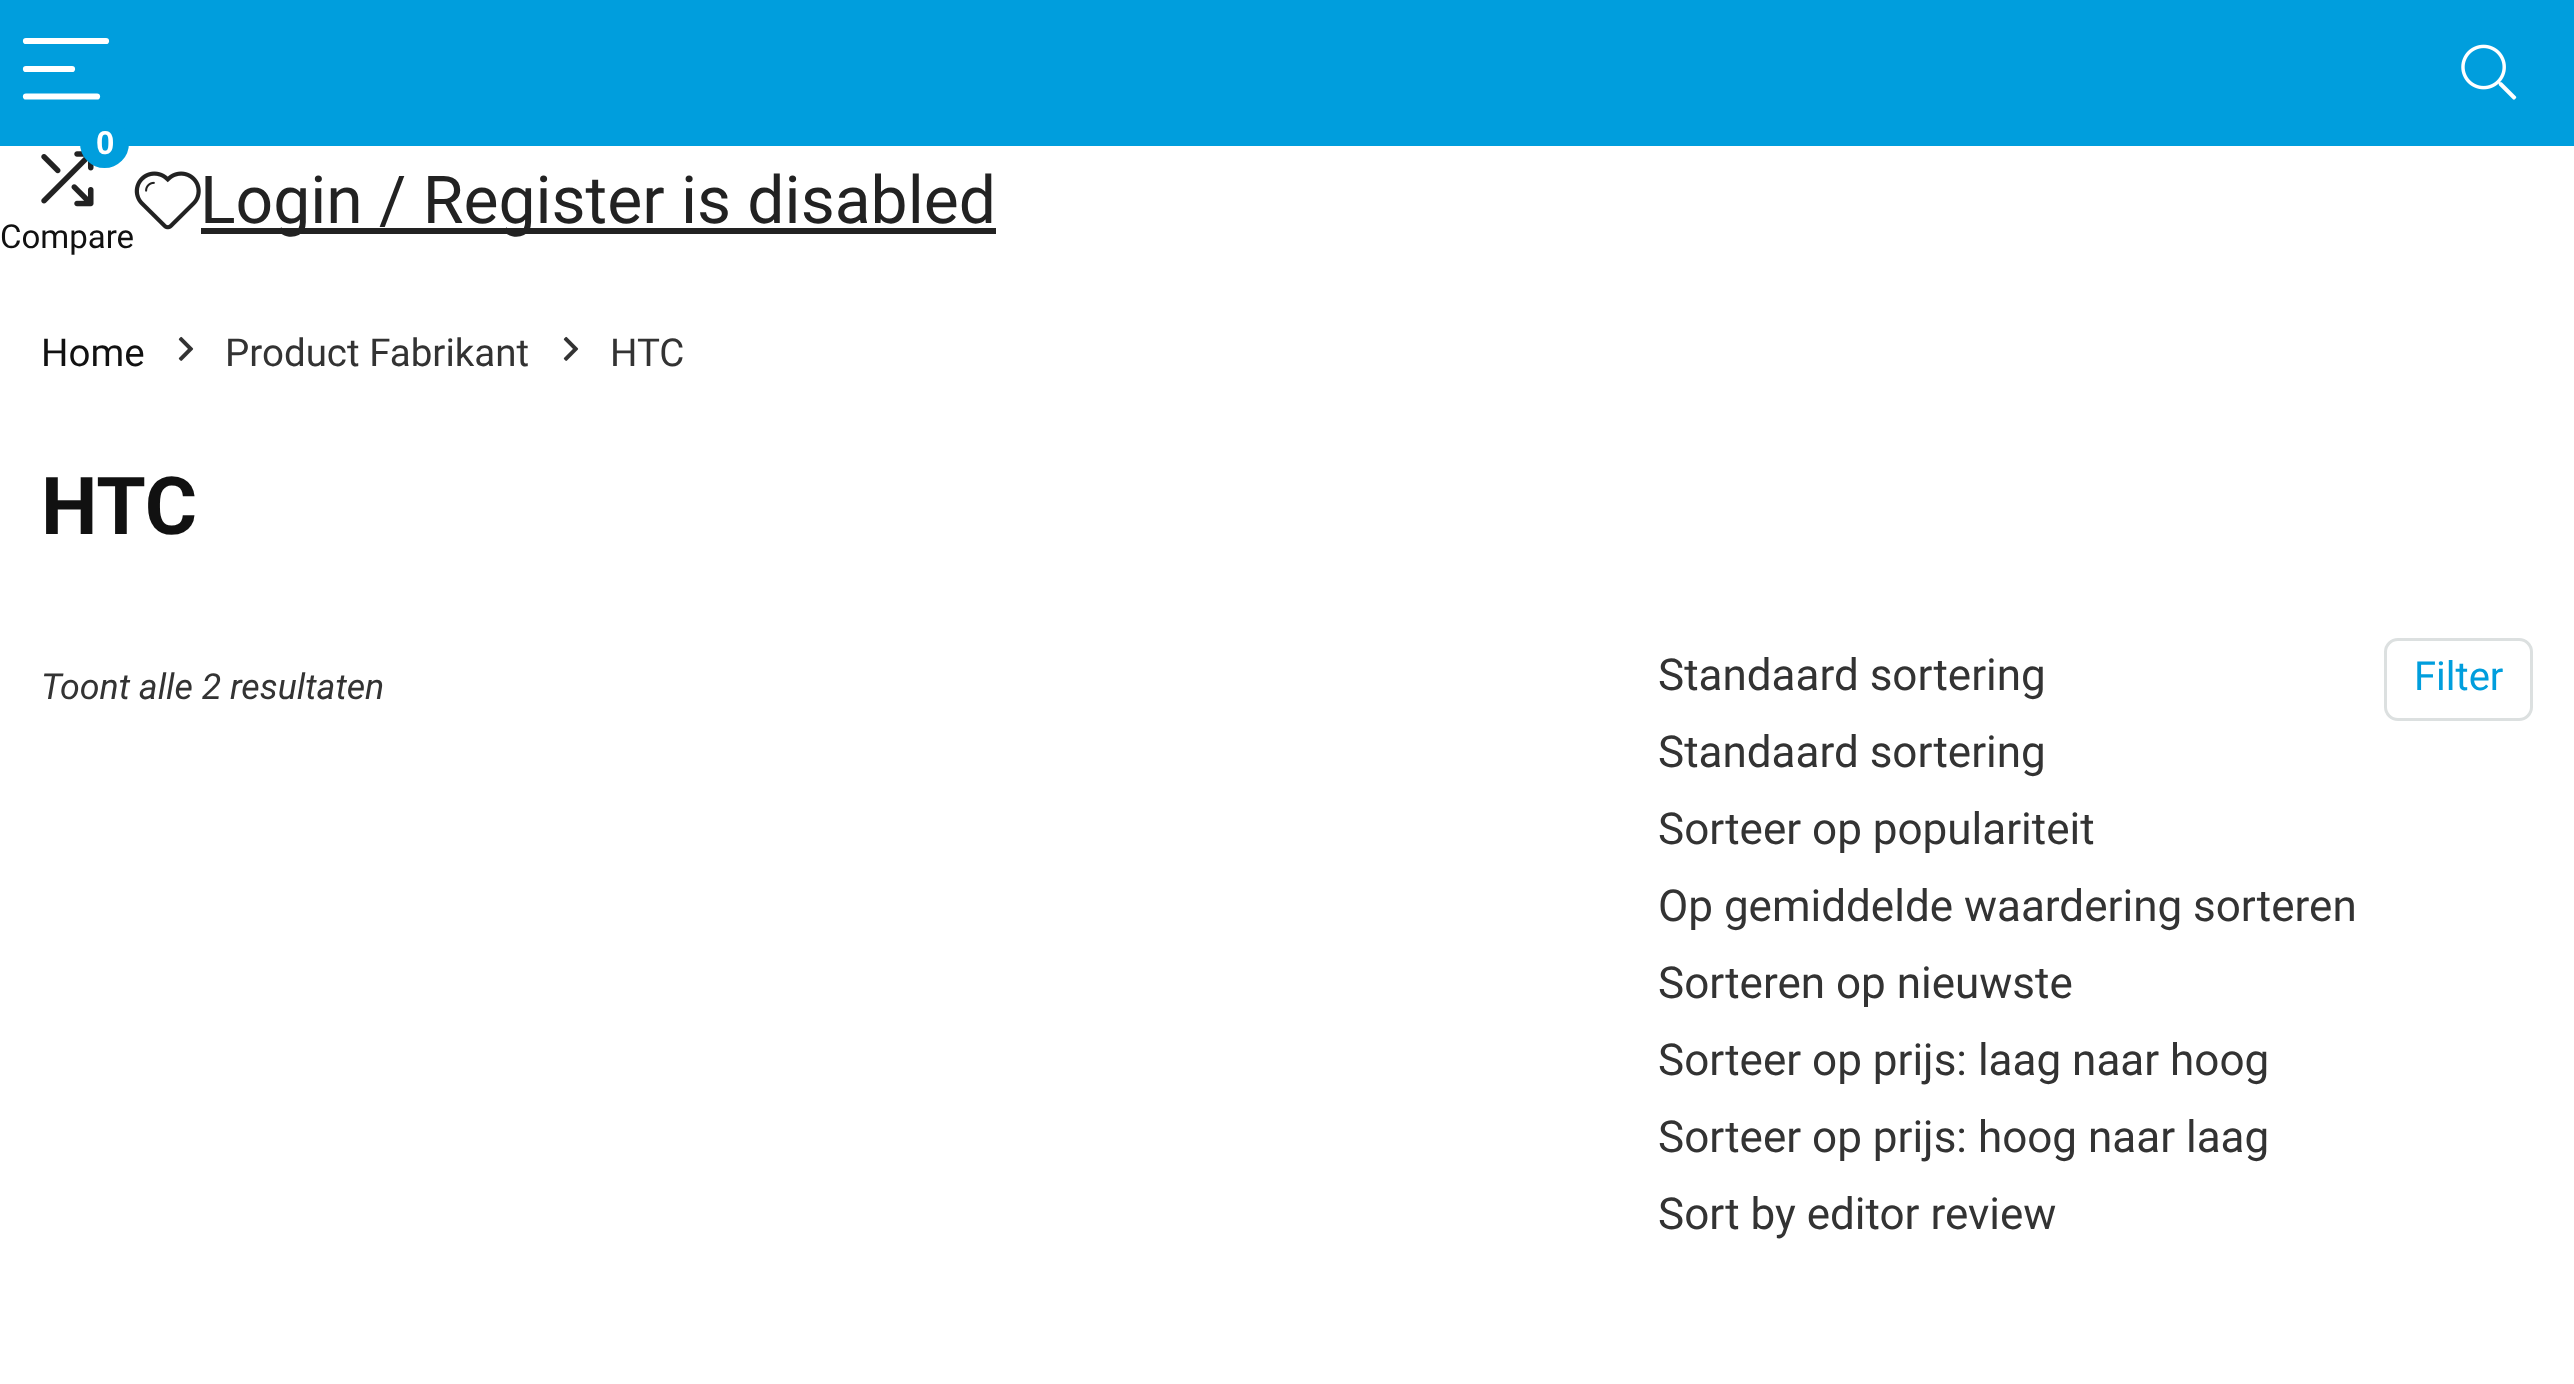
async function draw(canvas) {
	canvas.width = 2574;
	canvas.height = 1384;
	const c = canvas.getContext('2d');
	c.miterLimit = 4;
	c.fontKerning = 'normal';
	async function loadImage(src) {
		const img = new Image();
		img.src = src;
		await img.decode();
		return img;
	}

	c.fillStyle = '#fff';
	c.fillRect(0, 0, 2574, 1384);
	c.fillStyle = '#009edd';
	c.fillRect(0, 0, 2574, 146);
	c.beginPath();
	c.moveTo(26, 41);
	c.lineTo(106, 41);
	c.strokeStyle = '#fff';
	c.lineWidth = 6.2;
	c.lineCap = 'round';
	c.stroke();
	c.beginPath();
	c.moveTo(26, 69);
	c.lineTo(72, 69);
	c.stroke();
	c.beginPath();
	c.moveTo(26, 96.5);
	c.lineTo(97, 96.5);
	c.stroke();
	c.drawImage(await loadImage('img1.png'), 2461, 44, 56, 56);
	c.drawImage(await loadImage('img2.png'), 41, 151, 53, 56);
	c.beginPath();
	c.roundRect(80, 118, 49, 50, 24.5);
	c.fill();
	c.font = 'bold 33px Liberation Sans';
	c.fillStyle = '#fff';
	c.fillText('0', 96, 154);
	c.font = '33px Roboto';
	c.fillStyle = '#111';
	c.fillText('Compare', 0, 248);
	c.drawImage(await loadImage('img3.png'), 134, 171, 67, 59);
	c.fillStyle = '#222';
	c.fillRect(201, 228, 795, 6);
	c.font = '66px Roboto';
	c.fillText('Login / Register is disabled', 200, 223);
	c.font = '38.5px Roboto';
	c.fillStyle = '#111';
	c.fillText('Home', 41, 366);
	c.drawImage(await loadImage('img4.png'), 178, 336, 16, 25);
	c.fillStyle = '#333';
	c.fillText('Product Fabrikant', 225, 366);
	c.drawImage(await loadImage('img4.png'), 563, 336, 16, 25);
	c.fillText('HTC', 610, 366);
	c.font = 'bold 80px Roboto';
	c.fillStyle = '#111';
	c.fillText('HTC', 41, 534);
	c.font = 'italic 35.75px Roboto';
	c.fillStyle = '#333';
	c.fillText('Toont alle 2 resultaten', 41, 699);
	c.font = '44px Roboto';
	for (const [text, x, y] of [
		['Standaard sortering', 1658, 690],
		['Standaard sortering', 1658, 767],
		['Sorteer op populariteit', 1658, 844],
		['Op gemiddelde waardering sorteren', 1658, 921],
		['Sorteren op nieuwste', 1658, 998],
		['Sorteer op prijs: laag naar hoog', 1658, 1075],
		['Sorteer op prijs: hoog naar laag', 1658, 1152],
		['Sort by editor review', 1658, 1229],
	]) {
		c.fillText(text, x, y);
	}
	c.beginPath();
	c.roundRect(2385.5, 639.5, 146, 80, 12.5);
	c.strokeStyle = '#dce0e0';
	c.lineWidth = 3;
	c.stroke();
	c.font = '40px Roboto';
	c.fillStyle = '#009edd';
	c.fillText('Filter', 2414, 690);
}

draw(document.querySelector('canvas'));
